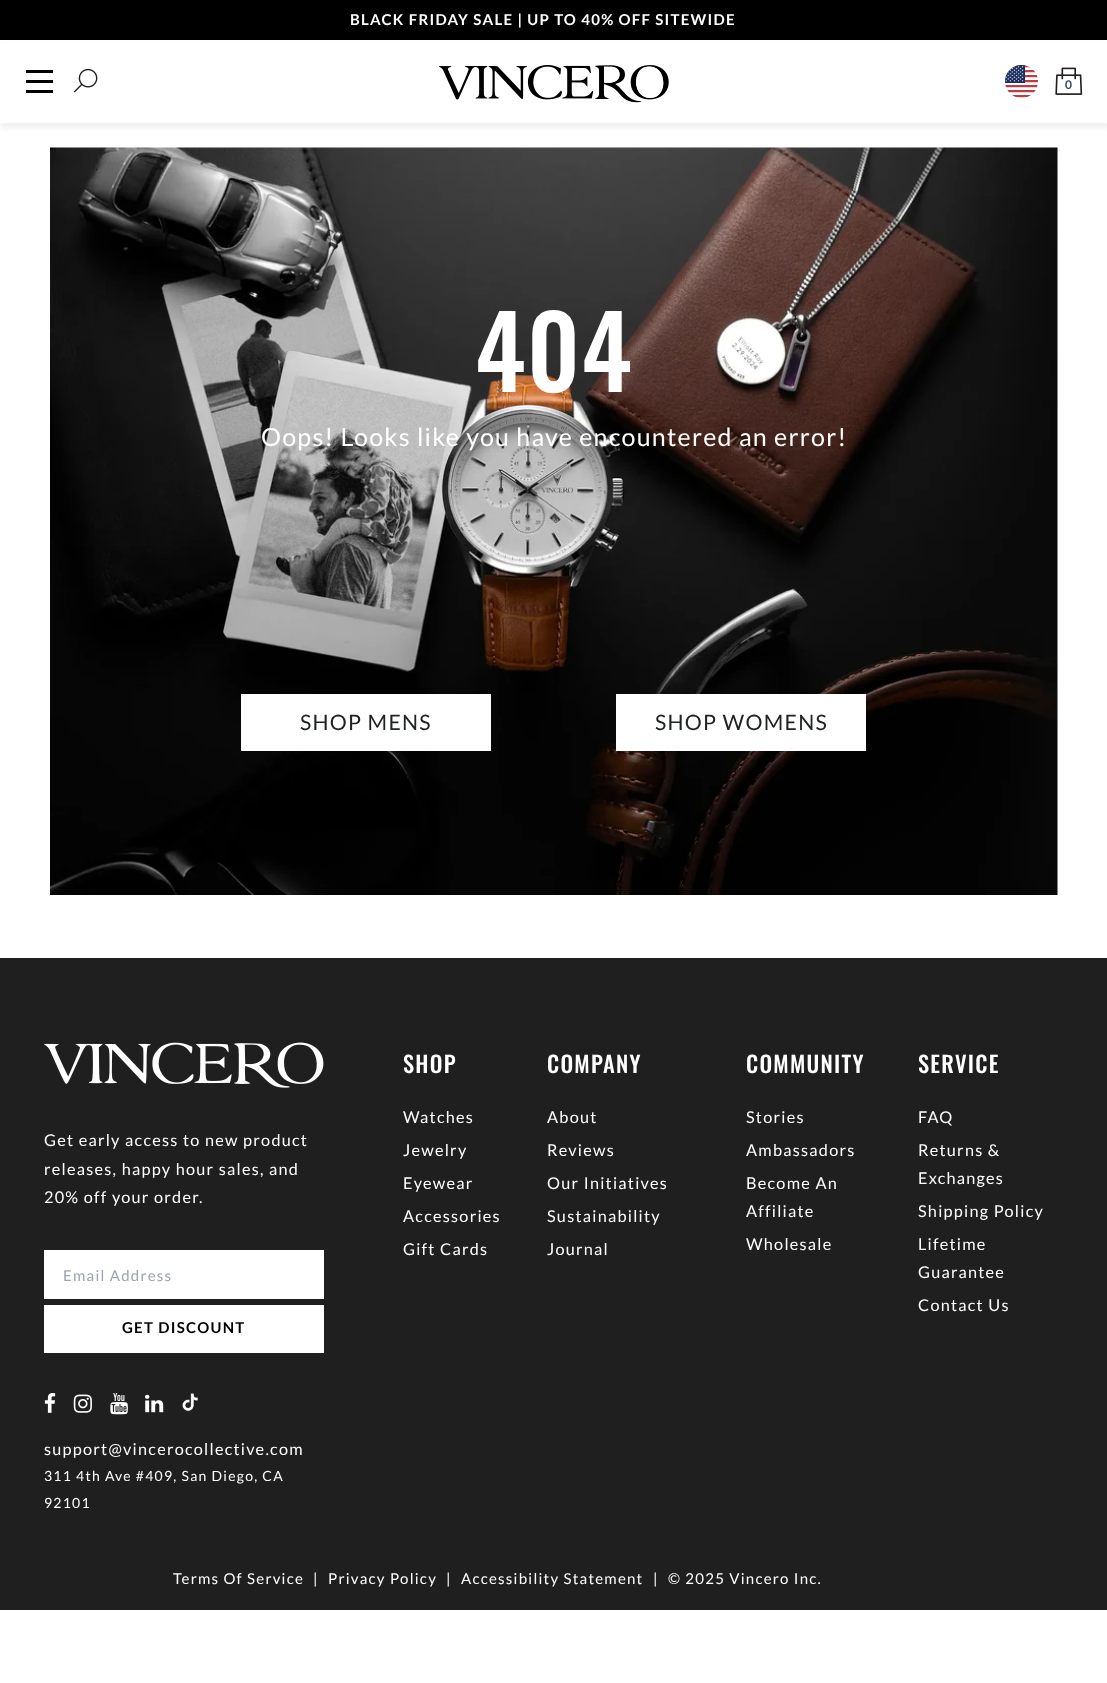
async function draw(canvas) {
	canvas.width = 1107;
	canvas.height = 1683;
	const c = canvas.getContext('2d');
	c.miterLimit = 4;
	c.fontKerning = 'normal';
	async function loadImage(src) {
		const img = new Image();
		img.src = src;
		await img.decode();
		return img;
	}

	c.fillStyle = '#fff';
	c.fillRect(0, 0, 1107, 1683);
	c.fillStyle = '#000';
	c.fillRect(0, 0, 1107, 40);
	c.letterSpacing = '1.25px';
	c.font = 'bold 15px Lato';
	c.fillStyle = '#fff';
	c.fillText('BLACK FRIDAY SALE | UP TO 40% OFF SITEWIDE', 350, 25);
	c.fillStyle = '#aeaeae33';
	c.filter = 'blur(2.5px)';
	c.beginPath();
	c.rect(1, 45, 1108, 83);
	c.fill();
	c.filter = 'none';
	for (const [x, y, w, h, color] of [
		[0, 43, 1107, 80, '#fff'],
		[26, 80, 27, 3, '#000'],
		[26, 70, 27, 3, '#000'],
		[26, 90, 27, 3, '#000'],
	]) {
		c.fillStyle = color;
		c.fillRect(x, y, w, h);
	}
	c.drawImage(await loadImage('img1.png'), 73, 68, 25, 25);
	c.drawImage(await loadImage('img2.png'), 439, 65, 230, 38);
	c.drawImage(await loadImage('img3.png'), 1005, 65, 33, 33);
	c.drawImage(await loadImage('img4.png'), 1055, 67, 28, 28);
	c.letterSpacing = '0px';
	c.font = 'bold 12px Lato';
	c.fillStyle = '#3f4b57';
	c.fillText('0', 1065, 89);
	c.drawImage(await loadImage('img5.png'), 50, 147, 1008, 748);
	c.letterSpacing = '1.25px';
	c.font = '500 100px Oswald';
	c.fillStyle = '#fff';
	c.fillText('404', 475, 392);
	c.font = '25px Lato';
	c.fillText('Oops! Looks like you have encountered an error!', 261, 446);
	c.fillRect(241, 694, 250, 57);
	c.font = '21.25px Lato';
	c.fillStyle = '#202324';
	c.fillText('SHOP MENS', 300, 730);
	c.fillStyle = '#fff';
	c.fillRect(616, 694, 250, 57);
	c.fillStyle = '#202324';
	c.fillText('SHOP WOMENS', 655, 730);
	c.fillStyle = '#1f1f1f';
	c.fillRect(0, 958, 1107, 652);
	c.drawImage(await loadImage('img6.png'), 44, 1042, 280, 46);
	c.font = '16.25px Lato';
	c.fillStyle = '#fff';
	for (const [text, x, y] of [
		['Get early access to new product', 44, 1146],
		['releases, happy hour sales, and', 44, 1175],
		['20% off your order.', 44, 1203],
	]) {
		c.fillText(text, x, y);
	}
	c.fillRect(44, 1250, 280, 49);
	c.font = '15px Lato';
	c.fillStyle = '#9ca3af';
	c.fillText('Email Address', 63, 1281);
	c.fillStyle = '#fff';
	c.fillRect(44, 1305, 280, 48);
	c.font = 'bold 15px Lato';
	c.fillStyle = '#000';
	c.fillText('GET DISCOUNT', 122, 1333);
	c.drawImage(await loadImage('img7.png'), 44, 1393, 12, 20);
	c.drawImage(await loadImage('img8.png'), 73, 1394, 19, 19);
	c.drawImage(await loadImage('img9.png'), 110, 1393, 18, 22);
	c.drawImage(await loadImage('img10.png'), 145, 1394, 19, 19);
	c.drawImage(await loadImage('img11.png'), 182, 1393, 16, 19);
	c.font = '16.25px Lato';
	c.fillStyle = '#fff';
	c.fillText('support@vincerocollective.com', 44, 1455);
	c.font = '14px Lato';
	c.fillText('311 4th Ave #409, San Diego, CA', 44, 1481);
	c.fillText('92101', 44, 1508);
	c.font = '500 22.5px Oswald';
	c.fillText('SHOP', 403, 1073);
	c.font = '16.25px Lato';
	for (const [text, x, y] of [
		['Watches', 403, 1123],
		['Jewelry', 403, 1156],
		['Eyewear', 403, 1189],
		['Accessories', 403, 1222],
		['Gift Cards', 403, 1255],
	]) {
		c.fillText(text, x, y);
	}
	c.font = '500 22.5px Oswald';
	c.fillText('COMPANY', 547, 1073);
	c.font = '16.25px Lato';
	for (const [text, x, y] of [
		['About', 547, 1123],
		['Reviews', 547, 1156],
		['Our Initiatives', 547, 1189],
		['Sustainability', 547, 1222],
		['Journal', 547, 1255],
	]) {
		c.fillText(text, x, y);
	}
	c.font = '500 22.5px Oswald';
	c.fillText('COMMUNITY', 746, 1073);
	c.font = '16.25px Lato';
	for (const [text, x, y] of [
		['Stories', 746, 1123],
		['Ambassadors', 746, 1156],
		['Become An', 746, 1189],
		['Affiliate', 746, 1217],
		['Wholesale', 746, 1250],
	]) {
		c.fillText(text, x, y);
	}
	c.font = '500 22.5px Oswald';
	c.fillText('SERVICE', 918, 1073);
	c.font = '16.25px Lato';
	for (const [text, x, y] of [
		['FAQ', 918, 1123],
		['Returns &', 918, 1156],
		['Exchanges', 918, 1184],
		['Shipping Policy', 918, 1217],
		['Lifetime', 918, 1250],
		['Guarantee', 918, 1278],
		['Contact Us', 918, 1311],
	]) {
		c.fillText(text, x, y);
	}
	c.font = '15px Lato';
	for (const [text, x, y] of [
		['Terms Of Service', 173, 1584],
		['|', 313, 1584],
		['Privacy Policy', 328, 1584],
		['|', 446, 1584],
		['Accessibility Statement', 461, 1584],
		['|', 653, 1584],
		['© 2025 Vincero Inc.', 668, 1584],
	]) {
		c.fillText(text, x, y);
	}
}

draw(document.querySelector('canvas'));
